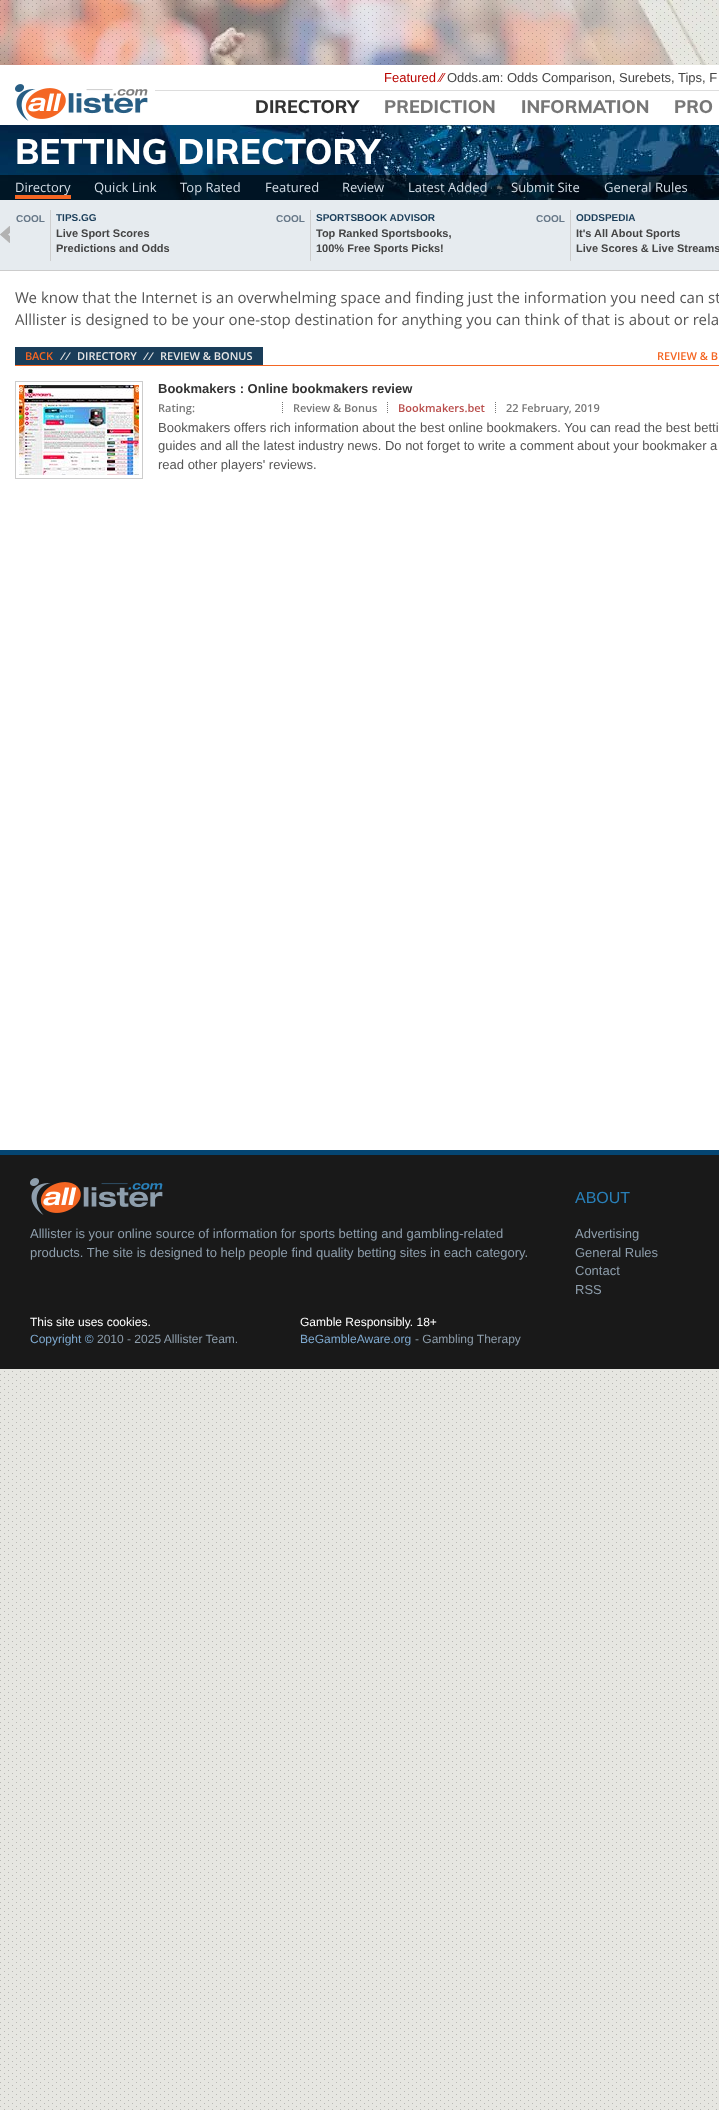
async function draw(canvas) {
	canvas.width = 719;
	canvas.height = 2110;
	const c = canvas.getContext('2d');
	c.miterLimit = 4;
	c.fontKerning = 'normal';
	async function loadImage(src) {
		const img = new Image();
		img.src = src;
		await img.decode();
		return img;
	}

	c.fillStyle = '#e6e6e1';
	c.fillRect(0, 0, 719, 2110);
	c.drawImage(await loadImage('img1.png'), 0, 0, 717, 2110);
	c.drawImage(await loadImage('img2.png'), 0, 0, 719, 65);
	c.drawImage(await loadImage('img3.png'), 0, 0, 717, 64);
	c.fillStyle = '#fff';
	c.fillRect(0, 65, 719, 1085);
	c.drawImage(await loadImage('img4.png'), 15, 84, 133, 37);
	c.fillStyle = '#ddd';
	c.fillRect(155, 90, 564, 1);
	c.font = '13px Liberation Sans';
	c.fillStyle = '#b90400';
	c.fillText('Featured ⁄⁄', 384, 82);
	c.fillStyle = '#444';
	c.fillText('Odds.am: Odds Comparison, Surebets, Tips, F', 447, 82);
	c.font = '800 18px Muli';
	c.fillStyle = '#333';
	c.fillText('DIRECTORY', 255, 113);
	c.fillStyle = '#777';
	for (const [text, x, y] of [
		['PREDICTION', 384, 113],
		['INFORMATION', 521, 113],
		['PRO', 674, 113],
	]) {
		c.fillText(text, x, y);
	}
	c.drawImage(await loadImage('img5.png'), 0, 125, 719, 75);
	c.font = '800 35px Muli';
	c.fillStyle = '#fff';
	c.fillText('BETTING DIRECTORY', 15, 164);
	c.fillStyle = '#00000099';
	c.fillRect(0, 175, 719, 25);
	c.font = '13px Open Sans';
	c.fillStyle = '#d3dde6';
	c.fillText('Directory', 15, 192);
	c.fillStyle = '#f46623';
	c.fillRect(15, 195, 56, 4);
	c.fillStyle = '#d3dde6';
	for (const [text, x, y] of [
		['Quick Link', 94, 192],
		['Top Rated', 180, 192],
		['Featured', 265, 192],
		['Review', 342, 192],
		['Latest Added', 408, 192],
		['Submit Site', 511, 192],
		['General Rules', 604, 192],
	]) {
		c.fillText(text, x, y);
	}
	c.fillStyle = '#e6ebef';
	c.fillRect(0, 200, 719, 70);
	c.fillStyle = '#ccc';
	c.fillRect(0, 270, 719, 1);
	c.drawImage(await loadImage('img6.png'), 0, 226, 10, 17);
	c.fillStyle = '#cecece';
	c.fillRect(50, 210, 1, 51);
	c.font = 'bold 10px Liberation Sans';
	c.fillStyle = '#677888';
	c.fillText('COOL', 16, 222);
	c.fillStyle = '#1a3d59';
	c.fillText('TIPS.GG', 56, 221);
	c.font = 'bold 11px Liberation Sans';
	c.fillStyle = '#444';
	c.fillText('Live Sport Scores', 56, 237);
	c.fillText('Predictions and Odds', 56, 252);
	c.fillStyle = '#cecece';
	c.fillRect(310, 210, 1, 51);
	c.font = 'bold 10px Liberation Sans';
	c.fillStyle = '#677888';
	c.fillText('COOL', 276, 222);
	c.fillStyle = '#1a3d59';
	c.fillText('SPORTSBOOK ADVISOR', 316, 221);
	c.font = 'bold 11px Liberation Sans';
	c.fillStyle = '#444';
	c.fillText('Top Ranked Sportsbooks,', 316, 237);
	c.fillText('100% Free Sports Picks!', 316, 252);
	c.fillStyle = '#cecece';
	c.fillRect(570, 210, 1, 51);
	c.font = 'bold 10px Liberation Sans';
	c.fillStyle = '#677888';
	c.fillText('COOL', 536, 222);
	c.fillStyle = '#1a3d59';
	c.fillText('ODDSPEDIA', 576, 221);
	c.font = 'bold 11px Liberation Sans';
	c.fillStyle = '#444';
	c.fillText('It\'s All About Sports', 576, 237);
	c.fillText('Live Scores & Live Streams', 576, 252);
	c.drawImage(await loadImage('img7.png'), 0, 226, 10, 17);
	c.font = '15px Open Sans';
	c.fillStyle = '#555';
	c.fillText('We know that the Internet is an overwhelming space and finding just the information you need can st', 15, 303);
	c.fillText('Alllister is designed to be your one-stop destination for anything you can think of that is about or rela', 15, 325);
	c.fillStyle = '#f46623';
	c.fillRect(15, 365, 704, 1);
	c.fillStyle = '#1a3d59';
	c.fillRect(15, 347, 248, 18);
	c.font = '600 11px Open Sans';
	c.fillStyle = '#f46623';
	c.fillText('BACK', 25, 360);
	c.font = 'bold 11px Liberation Sans';
	c.fillStyle = '#e6e6e6';
	c.fillText('⁄ ⁄', 62, 360);
	c.font = '600 11px Open Sans';
	c.fillText('DIRECTORY', 77, 360);
	c.font = 'bold 11px Liberation Sans';
	c.fillText('⁄ ⁄', 145, 360);
	c.font = '600 11px Open Sans';
	c.fillText('REVIEW & BONUS', 160, 360);
	c.fillStyle = '#f46623';
	c.fillText('REVIEW & B', 657, 360);
	c.strokeStyle = '#ccc';
	c.strokeRect(15.5, 381.5, 127, 97);
	c.drawImage(await loadImage('img8.png'), 19, 385, 120, 90);
	c.font = 'bold 13px Liberation Sans';
	c.fillStyle = '#333';
	c.fillText('Bookmakers : Online bookmakers review', 158, 393);
	c.font = '600 11px Open Sans';
	c.fillStyle = '#777';
	c.fillText('Rating:', 158, 412);
	c.beginPath();
	c.moveTo(282.5, 402);
	c.lineTo(282.5, 413);
	c.strokeStyle = '#777';
	c.setLineDash([1, 1]);
	c.stroke();
	c.fillText('Review & Bonus', 293, 412);
	c.beginPath();
	c.moveTo(387.5, 402);
	c.lineTo(387.5, 413);
	c.stroke();
	c.fillStyle = '#b94e4c';
	c.fillText('Bookmakers.bet', 398, 412);
	c.beginPath();
	c.moveTo(495.5, 402);
	c.lineTo(495.5, 413);
	c.stroke();
	c.fillStyle = '#777';
	c.fillText('22 February, 2019', 506, 412);
	c.font = '13px Liberation Sans';
	c.fillStyle = '#555';
	for (const [text, x, y] of [
		['Bookmakers offers rich information about the best online bookmakers. You can read the best betti', 158, 432],
		['guides and all the latest industry news. Do not forget to write a comment about your bookmaker a', 158, 450],
		['read other players\' reviews.', 158, 469],
	]) {
		c.fillText(text, x, y);
	}
	c.fillStyle = '#191919';
	c.fillRect(0, 1155, 719, 214);
	c.fillStyle = '#044572';
	c.fillRect(0, 1150, 719, 5);
	c.drawImage(await loadImage('img9.png'), 30, 1178, 133, 37);
	c.fillStyle = '#8e9eac';
	c.fillText('Alllister is your online source of information for sports betting and gambling-related', 30, 1238);
	c.fillText('products. The site is designed to help people find quality betting sites in each category.', 30, 1257);
	c.font = '16px Liberation Sans';
	c.fillStyle = '#2980b9';
	c.fillText('ABOUT', 575, 1203);
	c.font = '13px Liberation Sans';
	c.fillStyle = '#8e9eac';
	for (const [text, x, y] of [
		['Advertising', 575, 1238],
		['General Rules', 575, 1257],
		['Contact', 575, 1275],
		['RSS', 575, 1294],
	]) {
		c.fillText(text, x, y);
	}
	c.font = '12px Liberation Sans';
	c.fillStyle = '#fff';
	c.fillText('This site uses cookies.', 30, 1326);
	c.fillStyle = '#7faad0';
	c.fillText('Copyright ©', 30, 1343);
	c.fillStyle = '#8e9eac';
	c.fillText('2010 - 2025 Alllister Team.', 97, 1343);
	c.fillStyle = '#fff';
	c.fillText('Gamble Responsibly. 18+', 300, 1326);
	c.fillStyle = '#7faad0';
	c.fillText('BeGambleAware.org', 300, 1343);
	c.fillStyle = '#8e9eac';
	c.fillText('- Gambling Therapy', 415, 1343);
}

draw(document.querySelector('canvas'));
